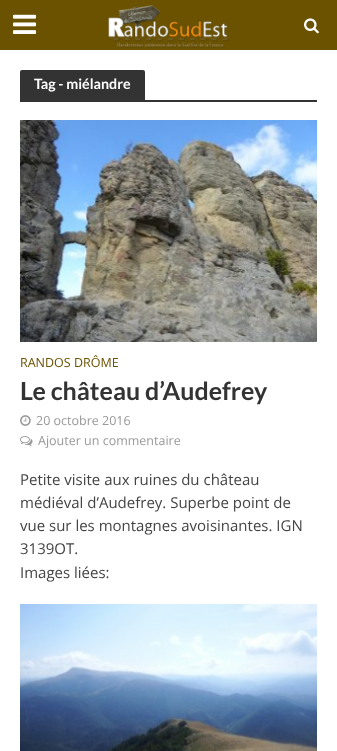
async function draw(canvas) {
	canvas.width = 337;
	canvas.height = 751;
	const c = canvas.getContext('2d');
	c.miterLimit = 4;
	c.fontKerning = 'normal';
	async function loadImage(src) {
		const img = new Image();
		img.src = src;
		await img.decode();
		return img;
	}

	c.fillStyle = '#fff';
	c.fillRect(0, 0, 337, 751);
	c.fillStyle = '#6b5200';
	c.fillRect(0, 0, 337, 50);
	c.drawImage(await loadImage('img1.png'), 13, 14, 24, 20);
	c.drawImage(await loadImage('img2.png'), 108, 5, 121, 43);
	c.drawImage(await loadImage('img3.png'), 304, 18, 15, 16);
	c.fillStyle = '#333';
	c.beginPath();
	c.roundRect(20, 70, 125, 30, [2, 2, 0, 0]);
	c.fill();
	c.font = 'bold 14.25px Lato';
	c.fillStyle = '#fff';
	c.fillText('Tag - miélandre', 34, 89);
	c.fillStyle = '#333';
	c.fillRect(20, 100, 297, 2);
	c.drawImage(await loadImage('img4.png'), 20, 120, 297, 222);
	c.font = '12.5px Open Sans';
	c.fillStyle = '#6b5200';
	c.fillText('RANDOS DRÔME', 20, 367);
	c.font = 'bold 25px Lato';
	c.fillStyle = '#333';
	c.fillText('Le château d’Audefrey', 20, 400);
	c.drawImage(await loadImage('img5.png'), 20, 415, 11, 11);
	c.font = '12.5px Open Sans';
	c.fillStyle = '#999';
	c.fillText('20 octobre 2016', 36, 425);
	c.drawImage(await loadImage('img6.png'), 20, 436, 13, 10);
	c.fillText('Ajouter un commentaire', 38, 445);
	c.font = '15px Open Sans';
	c.fillStyle = '#444';
	for (const [text, x, y] of [
		['Petite visite aux ruines du château', 20, 485],
		['médiéval d’Audefrey. Superbe point de', 20, 508],
		['vue sur les montagnes avoisinantes. IGN', 20, 531],
		['3139OT.', 20, 554],
		['Images liées:', 20, 578],
	]) {
		c.fillText(text, x, y);
	}
	c.drawImage(await loadImage('img7.png'), 20, 604, 297, 147);
}

draw(document.querySelector('canvas'));
